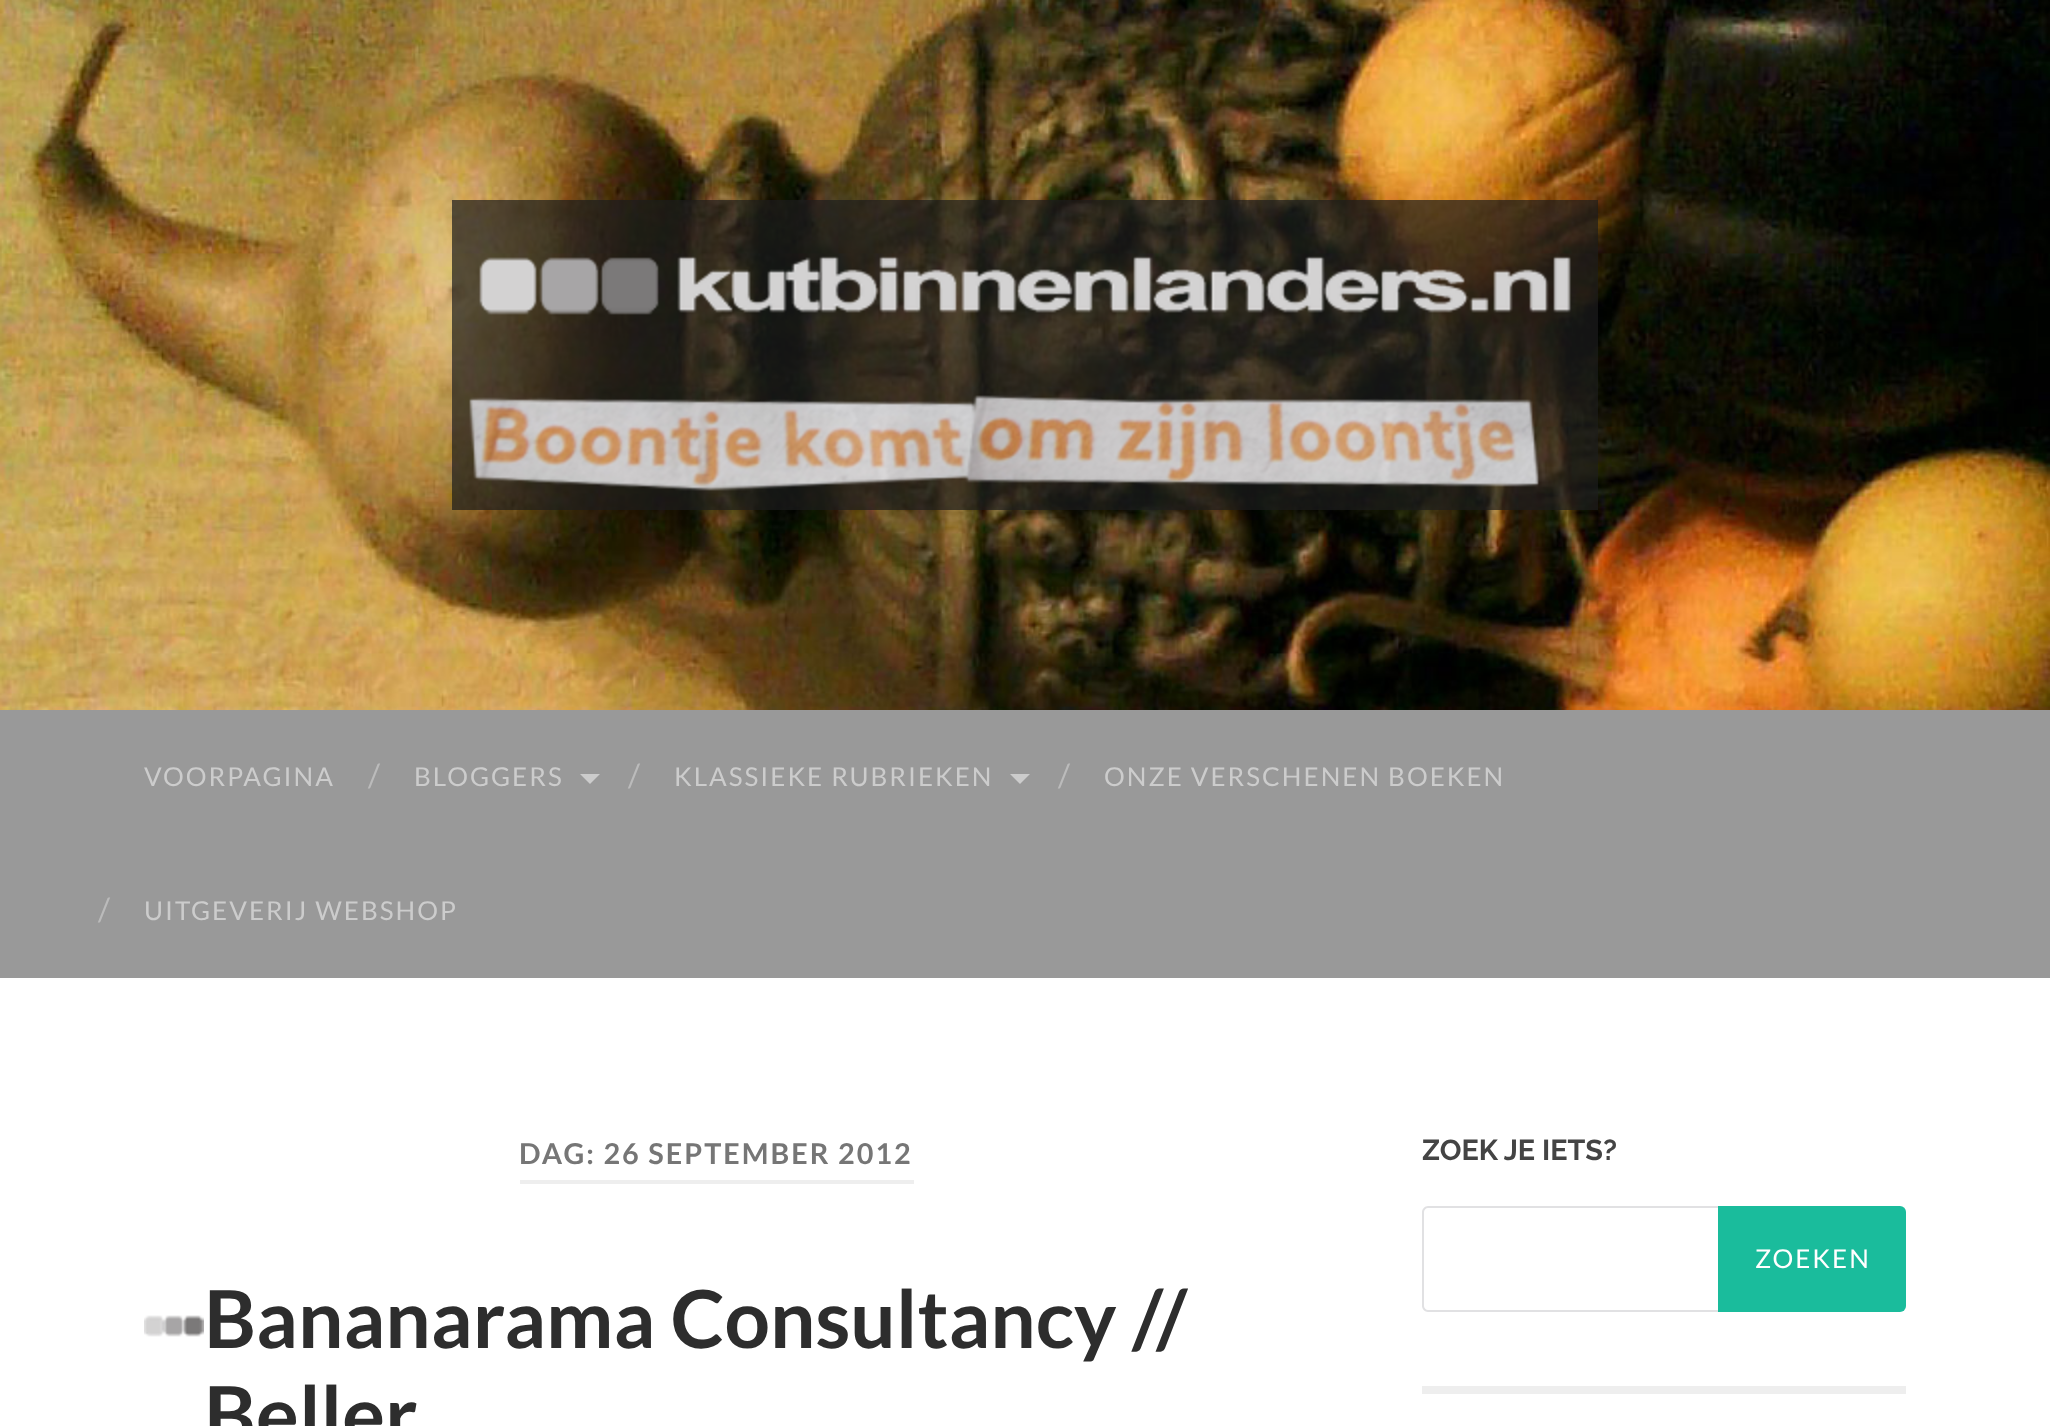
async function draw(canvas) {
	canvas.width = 2050;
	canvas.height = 1426;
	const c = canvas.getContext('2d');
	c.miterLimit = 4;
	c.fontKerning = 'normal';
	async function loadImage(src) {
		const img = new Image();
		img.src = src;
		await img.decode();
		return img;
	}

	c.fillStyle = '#fff';
	c.fillRect(0, 0, 2050, 1426);
	c.drawImage(await loadImage('img1.png'), 0, 0, 2050, 710);
	c.fillStyle = '#1d1d1db3';
	c.fillRect(452, 200, 1146, 310);
	c.drawImage(await loadImage('img2.png'), 479, 256, 1092, 59);
	c.drawImage(await loadImage('img3.png'), 469, 395, 1070, 96);
	c.fillStyle = '#999';
	c.fillRect(0, 710, 2050, 268);
	c.letterSpacing = '2px';
	c.font = '26px Lato';
	c.fillStyle = '#ccc';
	c.fillText('VOORPAGINA', 144, 786);
	c.letterSpacing = '0px';
	c.font = '32px Lato';
	c.fillStyle = '#bbb';
	c.fillText('/', 368, 787);
	c.letterSpacing = '2px';
	c.font = '26px Lato';
	c.fillStyle = '#ccc';
	c.fillText('BLOGGERS', 414, 786);
	c.beginPath();
	c.moveTo(580, 774);
	c.lineTo(600, 774);
	c.lineTo(590, 784);
	c.closePath();
	c.fill();
	c.letterSpacing = '0px';
	c.font = '32px Lato';
	c.fillStyle = '#bbb';
	c.fillText('/', 628, 787);
	c.letterSpacing = '2px';
	c.font = '26px Lato';
	c.fillStyle = '#ccc';
	c.fillText('KLASSIEKE RUBRIEKEN', 674, 786);
	c.beginPath();
	c.moveTo(1010, 774);
	c.lineTo(1030, 774);
	c.lineTo(1020, 784);
	c.closePath();
	c.fill();
	c.letterSpacing = '0px';
	c.font = '32px Lato';
	c.fillStyle = '#bbb';
	c.fillText('/', 1058, 787);
	c.letterSpacing = '2px';
	c.font = '26px Lato';
	c.fillStyle = '#ccc';
	c.fillText('ONZE VERSCHENEN BOEKEN', 1104, 786);
	c.letterSpacing = '0px';
	c.font = '32px Lato';
	c.fillStyle = '#bbb';
	c.fillText('/', 98, 921);
	c.letterSpacing = '2px';
	c.font = '26px Lato';
	c.fillStyle = '#ccc';
	c.fillText('UITGEVERIJ WEBSHOP', 144, 920);
	c.fillStyle = '#eee';
	c.fillRect(520, 1180, 394, 4);
	c.font = 'bold 28.75px Lato';
	c.fillStyle = '#767676';
	c.fillText('DAG: 26 SEPTEMBER 2012', 519, 1164);
	c.drawImage(await loadImage('img4.png'), 144, 1315, 60, 22);
	c.letterSpacing = '0px';
	c.font = 'bold 80px Lato';
	c.fillStyle = '#2d2d2d';
	c.fillText('Bananarama Consultancy //', 204, 1348);
	c.fillText('Beller', 204, 1444);
	c.fillStyle = '#eee';
	c.fillRect(1422, 1386, 484, 8);
	c.font = 'bold 28.75px Raleway';
	c.fillStyle = '#444';
	c.fillText('ZOEK JE IETS?', 1422, 1160);
	c.fillStyle = '#e1e1e3';
	c.beginPath();
	c.moveTo(1428, 1206);
	c.lineTo(1718, 1206);
	c.lineTo(1718, 1312);
	c.lineTo(1428, 1312);
	c.bezierCurveTo(1425, 1312, 1422, 1309, 1422, 1306);
	c.lineTo(1422, 1212);
	c.bezierCurveTo(1422, 1209, 1425, 1206, 1428, 1206);
	c.closePath();
	c.moveTo(1428, 1208);
	c.lineTo(1718, 1208);
	c.lineTo(1718, 1310);
	c.lineTo(1428, 1310);
	c.bezierCurveTo(1426, 1310, 1424, 1308, 1424, 1306);
	c.lineTo(1424, 1212);
	c.bezierCurveTo(1424, 1210, 1426, 1208, 1428, 1208);
	c.closePath();
	c.fill('evenodd');
	c.fillStyle = '#1abc9c';
	c.beginPath();
	c.roundRect(1718, 1206, 188, 106, [0, 6, 6, 0]);
	c.fill();
	c.letterSpacing = '2px';
	c.font = '26px Lato';
	c.fillStyle = '#fff';
	c.fillText('ZOEKEN', 1755, 1268);
}

draw(document.querySelector('canvas'));
